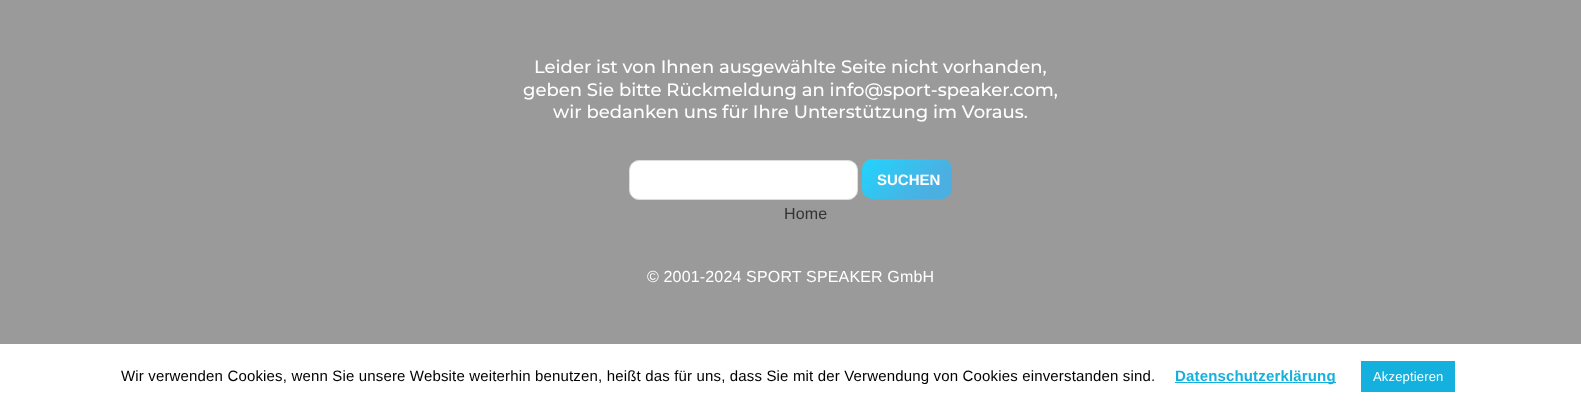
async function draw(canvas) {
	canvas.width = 1581;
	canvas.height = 409;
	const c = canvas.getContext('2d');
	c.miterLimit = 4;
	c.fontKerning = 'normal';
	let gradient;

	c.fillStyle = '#9a9a9a';
	c.fillRect(0, 0, 1581, 409);
	c.font = '500 18px Montserrat';
	c.fillStyle = '#fff';
	for (const [text, x, y] of [
		['Leider ist von Ihnen ausgewählte Seite nicht vorhanden,', 534, 73],
		['geben Sie bitte Rückmeldung an info@sport-speaker.com,', 523, 96],
		['wir bedanken uns für Ihre Unterstützung im Voraus.', 553, 118],
	]) {
		c.fillText(text, x, y);
	}
	c.beginPath();
	c.roundRect(629.5, 160.5, 228, 39, 9.5);
	c.fill();
	c.strokeStyle = '#ddd';
	c.stroke();
	gradient = c.createLinearGradient(875, 147, 940, 212);
	gradient.addColorStop(0, '#21d4fd');
	gradient.addColorStop(0.75, '#4cafe1');
	c.fillStyle = gradient;
	c.beginPath();
	c.roundRect(862, 159, 90, 40, 10);
	c.fill();
	c.font = 'bold 15px Liberation Sans';
	c.fillStyle = '#fff';
	c.fillText('SUCHEN', 877, 185);
	c.letterSpacing = '0.16px';
	c.font = '16px Liberation Sans';
	c.fillStyle = '#333';
	c.fillText('Home', 784, 219);
	c.fillStyle = '#fff';
	c.fillText('© 2001-2024 SPORT SPEAKER GmbH', 647, 282);
	c.fillRect(0, 344, 1581, 65);
	c.font = '15px Liberation Sans';
	c.fillStyle = '#000';
	c.fillText('Wir verwenden Cookies, wenn Sie unsere Website weiterhin benutzen, heißt das für uns, dass Sie mit der Verwendung von Cookies einverstanden sind.', 121, 381);
	c.fillStyle = '#15b1de';
	c.fillRect(1175, 382, 161, 1);
	c.font = 'bold 15px Liberation Sans';
	c.fillText('Datenschutzerklärung', 1175, 381);
	c.fillRect(1361, 361, 94, 31);
	c.font = '13px Liberation Sans';
	c.fillStyle = '#fff';
	c.fillText('Akzeptieren', 1373, 381);
}

draw(document.querySelector('canvas'));
